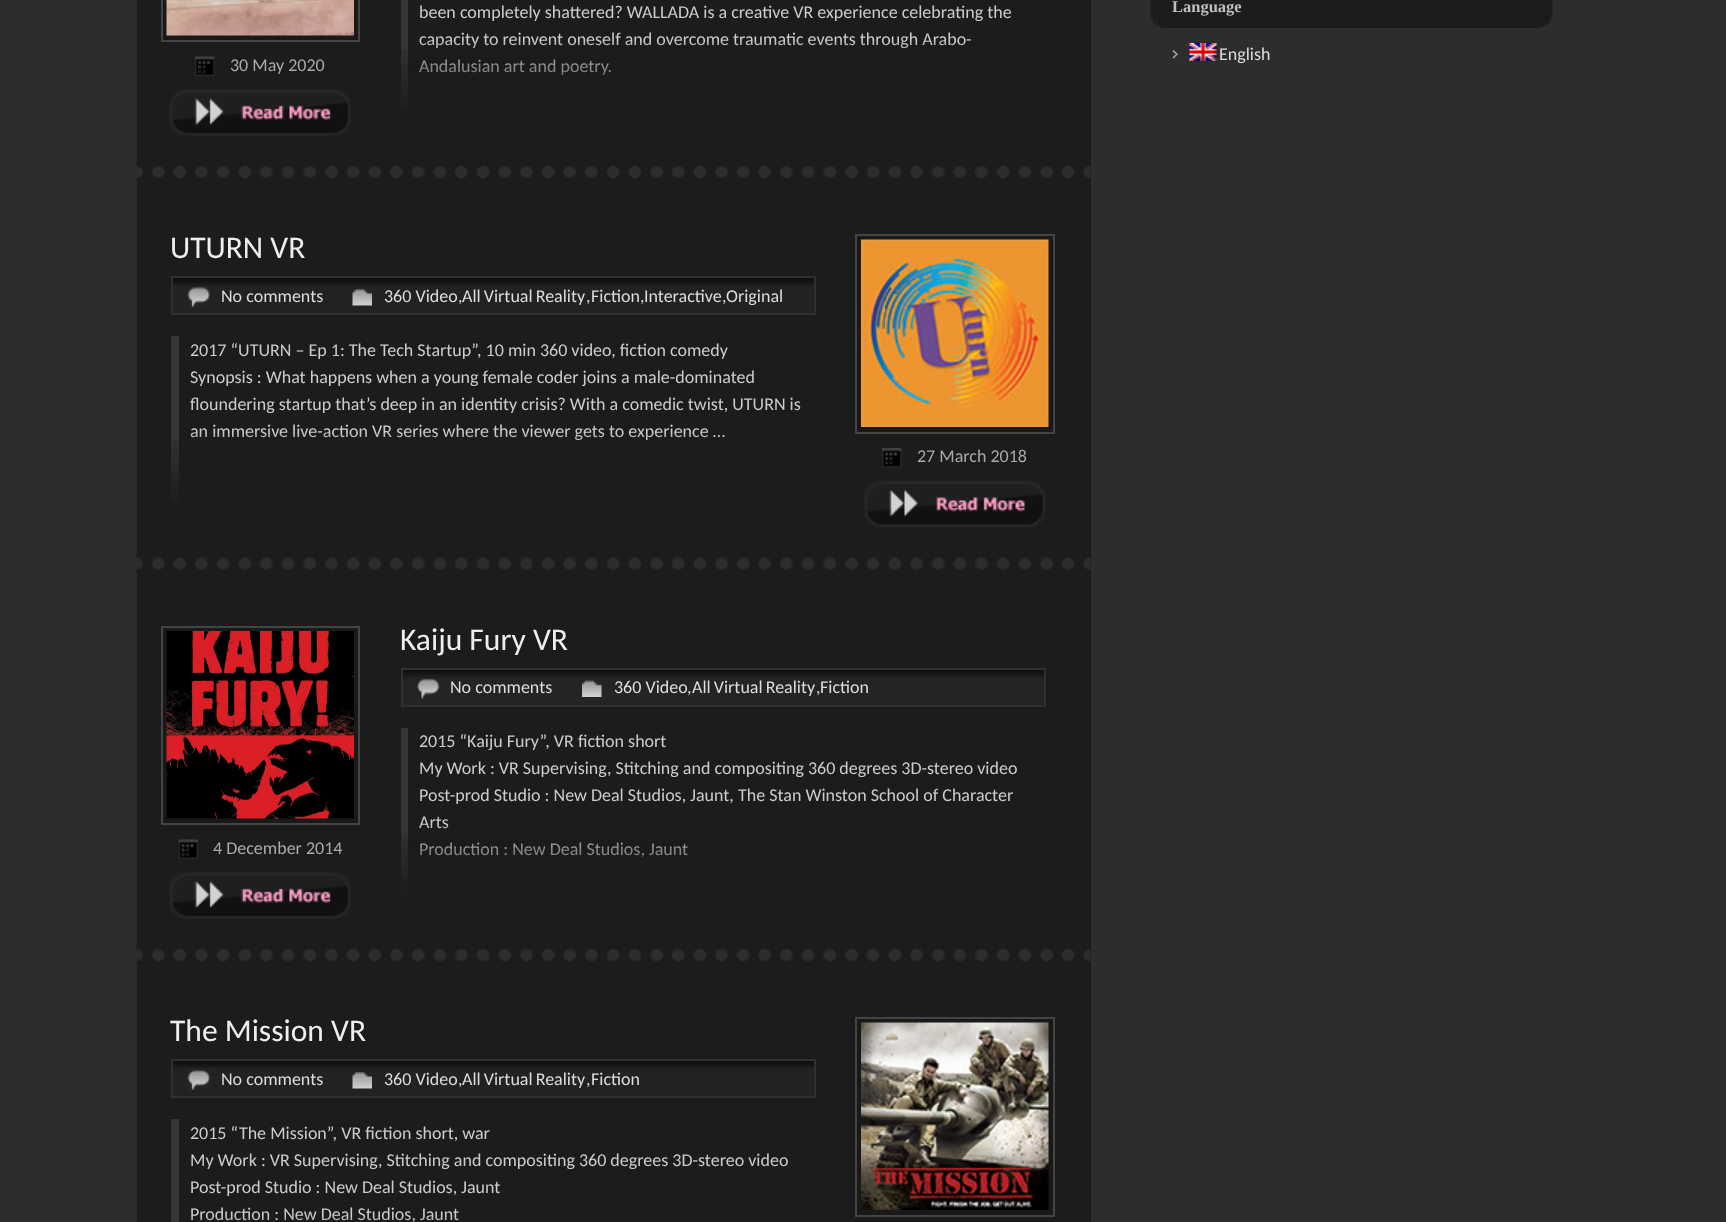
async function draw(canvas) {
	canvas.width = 1726;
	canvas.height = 1222;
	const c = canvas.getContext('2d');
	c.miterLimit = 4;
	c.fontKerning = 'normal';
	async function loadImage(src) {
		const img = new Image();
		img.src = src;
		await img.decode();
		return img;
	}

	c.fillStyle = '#2d2d2d';
	c.fillRect(0, 0, 1726, 1222);
	c.fillStyle = '#1c1c1c';
	c.fillRect(137, 0, 954, 1222);
	c.fillStyle = '#191919';
	c.beginPath();
	c.rect(162, -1, 197, 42);
	c.fill();
	c.strokeStyle = '#444';
	c.lineWidth = 2;
	c.stroke();
	c.drawImage(await loadImage('img1.png'), 166, 0, 188, 36);
	c.drawImage(await loadImage('img2.png'), 195, 56, 20, 20);
	c.font = '18px Carlito';
	c.fillStyle = '#aaa';
	c.fillText('30 May 2020', 230, 71);
	c.drawImage(await loadImage('img3.png'), 169, 89, 182, 47);
	for (const [x, y, w, h, color] of [
		[401, 0, 7, 110, '#353535'],
		[401, 102, 7, 8, '#1f1f1f'],
		[401, 50, 7, 7, '#303030'],
	]) {
		c.fillStyle = color;
		c.fillRect(x, y, w, h);
	}
	c.fillStyle = '#ccc';
	for (const [text, x, y] of [
		['been completely shattered? WALLADA is a creative VR experience celebrating the', 419, 18],
		['capacity to reinvent oneself and overcome traumatic events through Arabo-', 419, 45],
		['Andalusian art and poetry.', 419, 72],
	]) {
		c.fillText(text, x, y);
	}
	for (const [x, y, w, h, color] of [
		[420, 42, 546, 6, '#1c1c1c1a'],
		[401, 57, 208, 8, '#1c1c1c4d'],
		[401, 65, 211, 7, '#1c1c1c66'],
		[401, 72, 210, 8, '#1c1c1c80'],
		[401, 80, 7, 7, '#1c1c1c99'],
		[401, 87, 7, 8, '#1c1c1cb3'],
		[401, 95, 7, 7, '#1c1c1ccc'],
	]) {
		c.fillStyle = color;
		c.fillRect(x, y, w, h);
	}
	c.drawImage(await loadImage('img4.png'), 136, 161, 955, 20);
	c.font = '31.5px Carlito';
	c.fillStyle = '#eee';
	c.fillText('UTURN VR', 170, 258);
	c.fillStyle = '#222';
	c.fillRect(173, 285, 641, 28);
	c.drawImage(await loadImage('img5.png'), 173, 278, 641, 7);
	c.strokeStyle = '#303030';
	c.strokeRect(172, 277, 643, 37);
	c.drawImage(await loadImage('img6.png'), 187, 287, 23, 20);
	c.font = '18px Carlito';
	c.fillStyle = '#ddd';
	c.fillText('No comments', 221, 302);
	c.drawImage(await loadImage('img7.png'), 352, 289, 20, 17);
	c.fillText('360 Video', 384, 302);
	c.fillStyle = '#ccc';
	c.fillText(',', 458, 302);
	c.wordSpacing = '-1px';
	c.fillStyle = '#ddd';
	c.fillText('All Virtual Reality', 462, 302);
	c.wordSpacing = '0px';
	c.fillStyle = '#ccc';
	c.fillText(',', 586, 302);
	c.fillStyle = '#ddd';
	c.fillText('Fiction', 591, 302);
	c.fillStyle = '#ccc';
	c.fillText(',', 640, 302);
	c.fillStyle = '#ddd';
	c.fillText('Interactive', 644, 302);
	c.fillStyle = '#ccc';
	c.fillText(',', 722, 302);
	c.fillStyle = '#ddd';
	c.fillText('Original', 726, 302);
	for (const [x, y, w, h, color] of [
		[171, 336, 8, 105, '#353535'],
		[171, 494, 8, 7, '#1f1f1f'],
		[171, 486, 8, 8, '#212121'],
		[171, 479, 8, 7, '#242424'],
		[171, 471, 8, 8, '#262626'],
		[171, 464, 8, 7, '#292929'],
		[171, 456, 8, 8, '#2b2b2b'],
		[171, 449, 8, 7, '#2d2d2d'],
		[171, 441, 8, 8, '#303030'],
	]) {
		c.fillStyle = color;
		c.fillRect(x, y, w, h);
	}
	c.fillStyle = '#ccc';
	for (const [text, x, y] of [
		['2017 “UTURN – Ep 1: The Tech Startup”, 10 min 360 video, fiction comedy', 190, 356],
		['Synopsis : What happens when a young female coder joins a male-dominated', 190, 383],
		['floundering startup that’s deep in an identity crisis? With a comedic twist, UTURN is', 190, 410],
		['an immersive live-action VR series where the viewer gets to experience …', 190, 437],
	]) {
		c.fillText(text, x, y);
	}
	c.fillStyle = '#1c1c1c1a';
	c.fillRect(190, 434, 534, 6);
	c.fillStyle = '#191919';
	c.beginPath();
	c.rect(856, 235, 198, 198);
	c.fill();
	c.strokeStyle = '#444';
	c.stroke();
	c.drawImage(await loadImage('img8.png'), 861, 239, 188, 188);
	c.drawImage(await loadImage('img9.png'), 882, 448, 20, 20);
	c.fillStyle = '#aaa';
	c.fillText('27 March 2018', 917, 462);
	c.drawImage(await loadImage('img10.png'), 864, 481, 182, 47);
	c.drawImage(await loadImage('img11.png'), 136, 553, 955, 20);
	c.fillStyle = '#191919';
	c.beginPath();
	c.rect(162, 627, 197, 197);
	c.fill();
	c.stroke();
	c.drawImage(await loadImage('img12.png'), 166, 631, 188, 188);
	c.drawImage(await loadImage('img13.png'), 178, 839, 20, 20);
	c.fillStyle = '#aaa';
	c.fillText('4 December 2014', 213, 854);
	c.drawImage(await loadImage('img3.png'), 169, 872, 182, 47);
	c.font = '31.5px Carlito';
	c.fillStyle = '#eee';
	c.fillText('Kaiju Fury VR', 400, 650);
	c.drawImage(await loadImage('img14.png'), 400, 668, 644, 38);
	c.strokeStyle = '#303030';
	c.strokeRect(402, 669, 643, 37);
	c.drawImage(await loadImage('img15.png'), 417, 678, 23, 21);
	c.font = '18px Carlito';
	c.fillStyle = '#ddd';
	c.fillText('No comments', 450, 693);
	c.drawImage(await loadImage('img16.png'), 582, 680, 20, 17);
	c.fillText('360 Video', 614, 693);
	c.fillStyle = '#ccc';
	c.fillText(',', 687, 693);
	c.wordSpacing = '-1px';
	c.fillStyle = '#ddd';
	c.fillText('All Virtual Reality', 692, 693);
	c.wordSpacing = '0px';
	c.fillStyle = '#ccc';
	c.fillText(',', 816, 693);
	c.fillStyle = '#ddd';
	c.fillText('Fiction', 820, 693);
	c.fillStyle = '#353535';
	c.fillRect(401, 728, 7, 165);
	c.fillStyle = '#303030';
	c.fillRect(401, 833, 7, 7);
	c.fillStyle = '#ccc';
	for (const [text, x, y] of [
		['2015 “Kaiju Fury”, VR fiction short', 419, 747],
		['My Work : VR Supervising, Stitching and compositing 360 degrees 3D-stereo video', 419, 774],
		['Post-prod Studio : New Deal Studios, Jaunt, The Stan Winston School of Character', 419, 801],
		['Arts', 419, 828],
		['Production : New Deal Studios, Jaunt', 419, 855],
	]) {
		c.fillText(text, x, y);
	}
	for (const [x, y, w, h, color] of [
		[419, 825, 30, 3, '#1c1c1c1a'],
		[401, 840, 287, 8, '#1c1c1c4d'],
		[401, 848, 287, 7, '#1c1c1c66'],
		[401, 855, 286, 8, '#1c1c1c80'],
		[401, 863, 7, 7, '#1c1c1c99'],
		[401, 870, 7, 8, '#1c1c1cb3'],
		[401, 878, 7, 7, '#1c1c1ccc'],
		[401, 885, 7, 8, '#1c1c1ce6'],
	]) {
		c.fillStyle = color;
		c.fillRect(x, y, w, h);
	}
	c.drawImage(await loadImage('img4.png'), 136, 944, 955, 20);
	c.font = '31.5px Carlito';
	c.fillStyle = '#eee';
	c.fillText('The Mission VR', 170, 1041);
	c.fillStyle = '#222';
	c.fillRect(173, 1068, 641, 28);
	c.drawImage(await loadImage('img5.png'), 173, 1061, 641, 7);
	c.strokeRect(172, 1060, 643, 37);
	c.drawImage(await loadImage('img6.png'), 187, 1070, 23, 20);
	c.font = '18px Carlito';
	c.fillStyle = '#ddd';
	c.fillText('No comments', 221, 1085);
	c.drawImage(await loadImage('img7.png'), 352, 1072, 20, 17);
	c.fillText('360 Video', 384, 1085);
	c.fillStyle = '#ccc';
	c.fillText(',', 458, 1085);
	c.wordSpacing = '-1px';
	c.fillStyle = '#ddd';
	c.fillText('All Virtual Reality', 462, 1085);
	c.wordSpacing = '0px';
	c.fillStyle = '#ccc';
	c.fillText(',', 586, 1085);
	c.fillStyle = '#ddd';
	c.fillText('Fiction', 591, 1085);
	c.fillStyle = '#353535';
	c.fillRect(171, 1119, 8, 103);
	c.fillStyle = '#ccc';
	for (const [text, x, y] of [
		['2015 “The Mission”, VR fiction short, war', 190, 1139],
		['My Work : VR Supervising, Stitching and compositing 360 degrees 3D-stereo video', 190, 1166],
		['Post-prod Studio : New Deal Studios, Jaunt', 190, 1193],
		['Production : New Deal Studios, Jaunt', 190, 1220],
	]) {
		c.fillText(text, x, y);
	}
	c.fillStyle = '#1c1c1c1a';
	c.fillRect(191, 1217, 268, 5);
	c.fillStyle = '#191919';
	c.beginPath();
	c.rect(856, 1018, 198, 198);
	c.fill();
	c.strokeStyle = '#444';
	c.stroke();
	c.drawImage(await loadImage('img17.png'), 861, 1022, 188, 188);
	c.drawImage(await loadImage('img18.png'), 1150, 0, 403, 28);
	c.font = 'bold 16.5px Liberation Serif';
	c.fillStyle = '#bfbfbf';
	c.fillText('Language', 1172, 12);
	c.drawImage(await loadImage('img19.png'), 1172, 50, 6, 9);
	c.drawImage(await loadImage('img20.png'), 1189, 43, 28, 18);
	c.font = '18px Carlito';
	c.fillStyle = '#ddd';
	c.fillText('English', 1219, 60);
}

draw(document.querySelector('canvas'));
